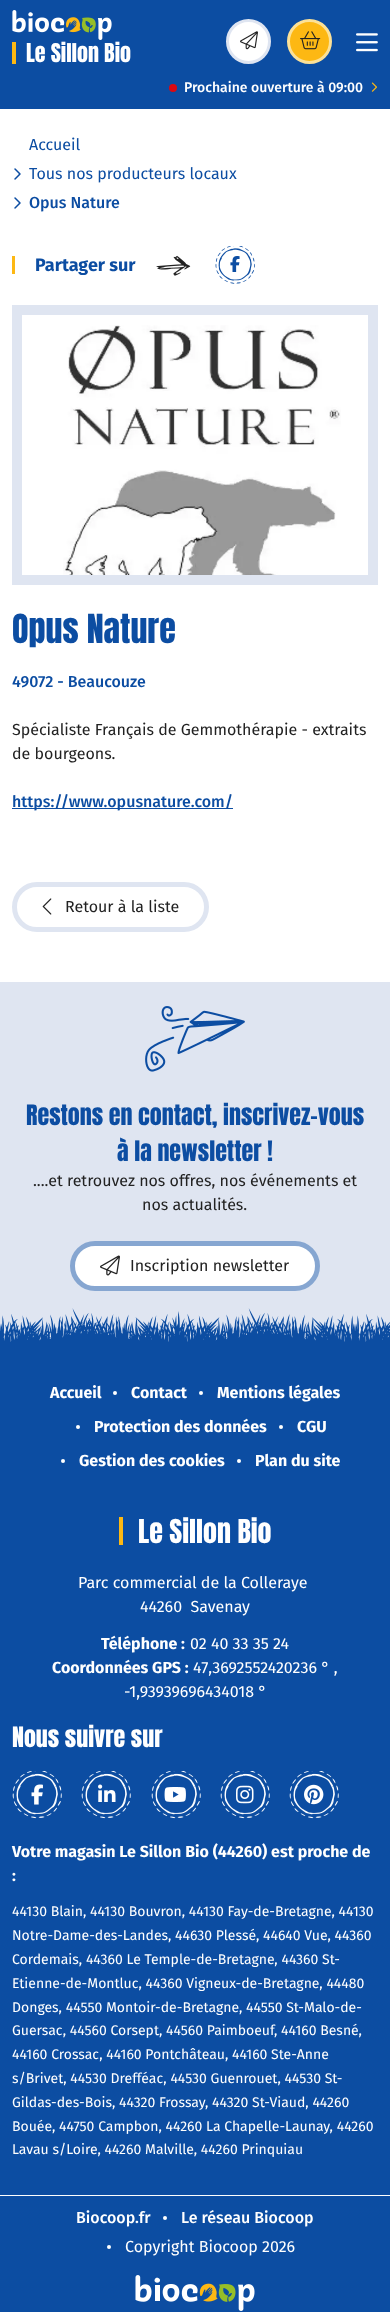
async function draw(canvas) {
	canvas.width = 390;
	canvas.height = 2312;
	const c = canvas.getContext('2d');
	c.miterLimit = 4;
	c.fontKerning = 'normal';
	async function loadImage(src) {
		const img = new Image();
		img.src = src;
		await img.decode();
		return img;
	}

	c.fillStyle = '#fff';
	c.fillRect(0, 0, 390, 2312);
	c.fillStyle = '#0c4da2';
	c.fillRect(0, 0, 390, 109);
	c.drawImage(await loadImage('img1.png'), 12, 10, 100, 30);
	c.fillStyle = '#fdb813';
	c.fillRect(12, 42, 4, 22);
	c.font = '22px Anton';
	c.fillStyle = '#fff';
	c.fillText('Le Sillon Bio', 26, 62);
	c.beginPath();
	c.arc(248.5, 41.5, 21, 0, 2 * Math.PI);
	c.fill();
	c.strokeStyle = '#dfe5f1';
	c.lineWidth = 3;
	c.stroke();
	c.drawImage(await loadImage('img2.png'), 240, 31, 18, 19);
	c.fillStyle = '#fdb813';
	c.beginPath();
	c.arc(309.5, 41.5, 21, 0, 2 * Math.PI);
	c.fill();
	c.strokeStyle = '#fce197';
	c.stroke();
	c.drawImage(await loadImage('img3.png'), 300, 31, 21, 19);
	c.drawImage(await loadImage('img4.png'), 356, 33, 22, 19);
	c.fillStyle = '#da0812';
	c.beginPath();
	c.arc(173, 88, 4, 0, 2 * Math.PI);
	c.fill();
	c.font = '500 14px Fira Sans';
	c.fillStyle = '#fff';
	c.fillText('Prochaine ouverture à 09:00', 184, 92);
	c.drawImage(await loadImage('img5.png'), 371, 82, 7, 10);
	c.font = '16px Fira Sans';
	c.fillStyle = '#0c4da2';
	c.fillText('Accueil', 29, 150);
	c.drawImage(await loadImage('img6.png'), 14, 168, 7, 12);
	c.fillText('Tous nos producteurs locaux', 29, 179);
	c.drawImage(await loadImage('img6.png'), 14, 197, 7, 12);
	c.font = '500 16px Fira Sans';
	c.fillText('Opus Nature', 29, 208);
	c.fillStyle = '#fdb813';
	c.fillRect(12, 256, 3, 18);
	c.font = 'bold 18px Fira Sans';
	c.fillStyle = '#0c4da2';
	c.fillText('Partager sur', 35, 271);
	c.drawImage(await loadImage('img7.png'), 156, 255, 35, 21);
	c.drawImage(await loadImage('img8.png'), 215, 246, 40, 38);
	c.drawImage(await loadImage('img9.png'), 230, 256, 10, 16);
	c.beginPath();
	c.rect(17, 310, 356, 270);
	c.strokeStyle = '#dfe5f1';
	c.lineWidth = 10;
	c.stroke();
	c.drawImage(await loadImage('img10.png'), 63, 325, 278, 250);
	c.font = '34px Anton';
	c.fillText('Opus Nature', 12, 643);
	c.font = '500 16px Fira Sans';
	c.fillText('49072 - Beaucouze', 12, 687);
	c.font = '16px Fira Sans';
	c.fillStyle = '#222';
	c.fillText('Spécialiste Français de Gemmothérapie - extraits', 12, 735);
	c.fillText('de bourgeons.', 12, 759);
	c.fillStyle = '#0c4da2';
	c.fillRect(12, 808, 221, 1);
	c.font = '500 16px Fira Sans';
	c.fillText('https://www.opusnature.com/', 12, 807);
	c.beginPath();
	c.roundRect(14.5, 884.5, 192, 45, 22.5);
	c.lineWidth = 5;
	c.stroke();
	c.drawImage(await loadImage('img11.png'), 42, 898, 10, 17);
	c.font = '16px Fira Sans';
	c.fillStyle = '#222';
	c.fillText('Retour à la liste', 65, 912);
	c.fillStyle = '#0c4da2';
	c.fillRect(0, 1356, 390, 956);
	c.fillStyle = '#dfe5f1';
	c.fillRect(0, 982, 390, 360);
	c.drawImage(await loadImage('img12.png'), 145, 1006, 100, 66);
	c.font = '24px Anton';
	c.fillStyle = '#0c4da2';
	c.fillText('Restons en contact, inscrivez-vous', 26, 1125);
	c.fillText('à la newsletter !', 117, 1161);
	c.font = '16px Fira Sans';
	c.fillStyle = '#222';
	c.fillText('....et retrouvez nos offres, nos événements et', 33, 1186);
	c.fillText('nos actualités.', 142, 1210);
	c.fillStyle = '#fff';
	c.beginPath();
	c.roundRect(72.5, 1243.5, 245, 45, 22.5);
	c.fill();
	c.strokeStyle = '#86a6d1';
	c.stroke();
	c.drawImage(await loadImage('img13.png'), 100, 1255, 20, 21);
	c.fillStyle = '#222';
	c.fillText('Inscription newsletter', 130, 1271);
	c.drawImage(await loadImage('img14.png'), 0, 1308, 390, 48);
	c.font = 'bold 16px Fira Sans';
	c.fillStyle = '#fff';
	c.fillText('Accueil', 50, 1398);
	c.beginPath();
	c.arc(115, 1393, 2, 0, 2 * Math.PI);
	c.fill();
	c.fillText('Contact', 131, 1398);
	c.beginPath();
	c.arc(201, 1393, 2, 0, 2 * Math.PI);
	c.fill();
	c.fillText('Mentions légales', 217, 1398);
	c.beginPath();
	c.arc(78, 1427, 2, 0, 2 * Math.PI);
	c.fill();
	c.fillText('Protection des données', 94, 1432);
	c.beginPath();
	c.arc(281, 1427, 2, 0, 2 * Math.PI);
	c.fill();
	c.fillText('CGU', 297, 1432);
	c.beginPath();
	c.arc(63, 1461, 2, 0, 2 * Math.PI);
	c.fill();
	c.fillText('Gestion des cookies', 79, 1466);
	c.beginPath();
	c.arc(239, 1461, 2, 0, 2 * Math.PI);
	c.fill();
	c.fillText('Plan du site', 255, 1466);
	c.fillStyle = '#fdb813';
	c.fillRect(119, 1517, 4, 28);
	c.font = '28px Anton';
	c.fillStyle = '#fff';
	c.fillText('Le Sillon Bio', 138, 1543);
	c.font = '16px Fira Sans';
	c.fillText('Parc commercial de la Colleraye', 78, 1588);
	c.fillText('44260  Savenay', 140, 1612);
	c.font = 'bold 16px Fira Sans';
	c.fillText('Téléphone :', 101, 1649);
	c.font = '16px Fira Sans';
	c.fillText('02 40 33 35 24', 190, 1649);
	c.font = 'bold 16px Fira Sans';
	c.fillText('Coordonnées GPS :', 52, 1673);
	c.font = '16px Fira Sans';
	c.fillText('47,3692552420236 ° ,', 193, 1673);
	c.fillText('-1,93939696434018 °', 124, 1697);
	c.font = '24px Anton';
	c.fillText('Nous suivre sur', 12, 1747);
	c.drawImage(await loadImage('img15.png'), 12, 1771, 50, 48);
	c.drawImage(await loadImage('img16.png'), 31, 1784, 12, 21);
	c.drawImage(await loadImage('img15.png'), 81, 1771, 50, 48);
	c.drawImage(await loadImage('img17.png'), 98, 1784, 18, 18);
	c.drawImage(await loadImage('img15.png'), 151, 1771, 50, 48);
	c.drawImage(await loadImage('img18.png'), 164, 1787, 22, 15);
	c.drawImage(await loadImage('img15.png'), 220, 1771, 50, 48);
	c.drawImage(await loadImage('img19.png'), 236, 1785, 18, 19);
	c.drawImage(await loadImage('img15.png'), 289, 1771, 50, 48);
	c.drawImage(await loadImage('img20.png'), 304, 1784, 20, 21);
	c.font = 'bold 16px Fira Sans';
	c.fillText('Votre magasin Le Sillon Bio (44260) est proche de', 12, 1857);
	c.fillText(':', 12, 1881);
	c.font = '14px Fira Sans';
	for (const [text, x, y] of [
		['44130 Blain, 44130 Bouvron, 44130 Fay-de-Bretagne, 44130', 12, 1916],
		['Notre-Dame-des-Landes, 44630 Plessé, 44640 Vue, 44360', 12, 1940],
		['Cordemais, 44360 Le Temple-de-Bretagne, 44360 St-', 12, 1964],
		['Etienne-de-Montluc, 44360 Vigneux-de-Bretagne, 44480', 12, 1988],
		['Donges, 44550 Montoir-de-Bretagne, 44550 St-Malo-de-', 12, 2012],
		['Guersac, 44560 Corsept, 44560 Paimboeuf, 44160 Besné,', 12, 2035],
		['44160 Crossac, 44160 Pontchâteau, 44160 Ste-Anne', 12, 2059],
		['s/Brivet, 44530 Drefféac, 44530 Guenrouet, 44530 St-', 12, 2083],
		['Gildas-des-Bois, 44320 Frossay, 44320 St-Viaud, 44260', 12, 2107],
		['Bouée, 44750 Campbon, 44260 La Chapelle-Launay, 44260', 12, 2131],
		['Lavau s/Loire, 44260 Malville, 44260 Prinquiau', 12, 2154],
	]) {
		c.fillText(text, x, y);
	}
	c.fillRect(0, 2195, 390, 1);
	c.font = '500 16px Fira Sans';
	c.fillText('Biocoop.fr', 76, 2223);
	c.beginPath();
	c.arc(165, 2218, 2, 0, 2 * Math.PI);
	c.fill();
	c.fillText('Le réseau Biocoop', 181, 2223);
	c.beginPath();
	c.arc(109, 2247, 2, 0, 2 * Math.PI);
	c.fill();
	c.font = '16px Fira Sans';
	c.fillText('Copyright Biocoop 2026', 125, 2252);
	c.drawImage(await loadImage('img21.png'), 135, 2275, 120, 36);
}

draw(document.querySelector('canvas'));
